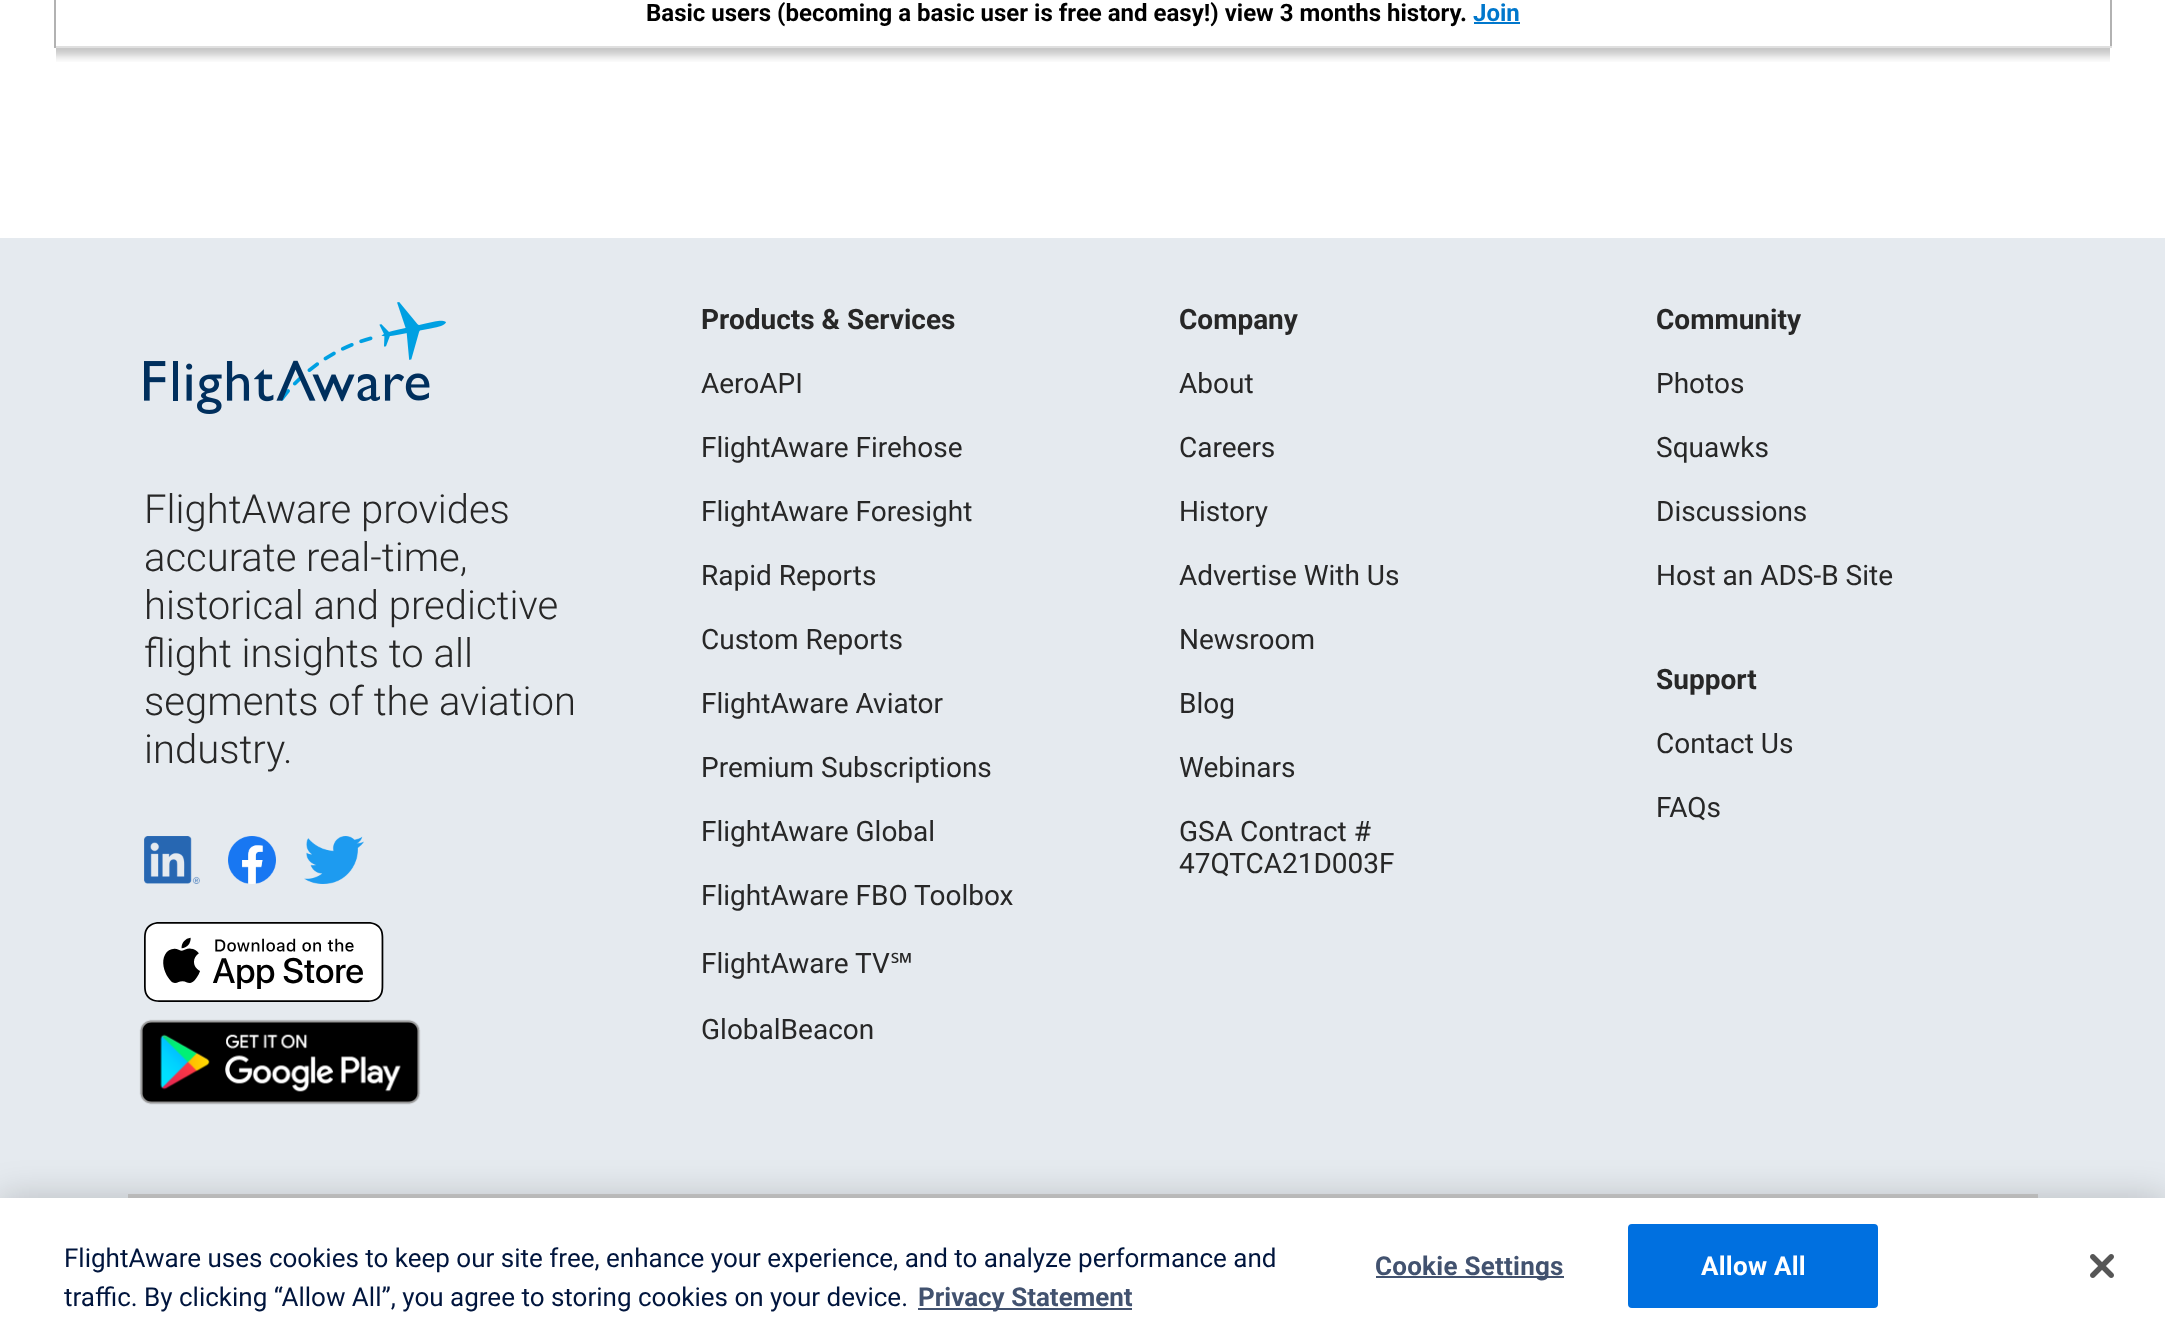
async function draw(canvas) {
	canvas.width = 2165;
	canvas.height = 1340;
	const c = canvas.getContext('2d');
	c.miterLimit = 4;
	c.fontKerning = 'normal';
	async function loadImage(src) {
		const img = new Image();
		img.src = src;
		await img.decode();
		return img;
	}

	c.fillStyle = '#fff';
	c.fillRect(0, 0, 2165, 1340);
	for (const [x, y, w, h, color] of [
		[2110, 0, 2, 48, '#b2b2b2'],
		[54, 46, 2058, 2, '#dfdfdf'],
		[54, 0, 2, 48, '#b2b2b2'],
	]) {
		c.fillStyle = color;
		c.fillRect(x, y, w, h);
	}
	c.font = 'bold 24px Roboto';
	c.fillStyle = '#000';
	c.fillText('Basic users (becoming a basic user is free and easy!) view 3 months history.', 646, 21);
	c.fillStyle = '#07c';
	c.fillText('Join', 1473, 21);
	c.fillRect(1474, 22, 46, 2);
	c.drawImage(await loadImage('img1.png'), 56, 48, 2054, 14);
	c.fillStyle = '#e5eaef';
	c.fillRect(0, 238, 2165, 960);
	c.drawImage(await loadImage('img2.png'), 144, 302, 302, 112);
	c.font = '300 40px Roboto';
	c.fillStyle = '#272727';
	for (const [text, x, y] of [
		['FlightAware provides', 144, 523],
		['accurate real-time,', 144, 571],
		['historical and predictive', 144, 619],
		['flight insights to all', 144, 667],
		['segments of the aviation', 144, 715],
		['industry.', 144, 763],
	]) {
		c.fillText(text, x, y);
	}
	c.drawImage(await loadImage('img3.png'), 144, 836, 56, 48);
	c.drawImage(await loadImage('img4.png'), 228, 836, 48, 48);
	c.drawImage(await loadImage('img5.png'), 304, 836, 60, 48);
	c.drawImage(await loadImage('img6.png'), 144, 922, 240, 80);
	c.drawImage(await loadImage('img7.png'), 139, 1019, 282, 86);
	c.font = 'bold 28px Roboto';
	c.fillText('Products & Services', 701, 329);
	c.font = '28px Roboto';
	for (const [text, x, y] of [
		['AeroAPI', 701, 393],
		['FlightAware Firehose', 701, 457],
		['FlightAware Foresight', 701, 521],
		['Rapid Reports', 701, 585],
		['Custom Reports', 701, 649],
		['FlightAware Aviator', 701, 713],
		['Premium Subscriptions', 701, 777],
		['FlightAware Global', 701, 841],
		['FlightAware FBO Toolbox', 701, 905],
		['FlightAware TV', 701, 973],
	]) {
		c.fillText(text, x, y);
	}
	c.font = '28px Noto Sans';
	c.fillText('℠', 890, 973);
	c.font = '28px Roboto';
	c.fillText('GlobalBeacon', 701, 1039);
	c.font = 'bold 28px Roboto';
	c.fillText('Company', 1179, 329);
	c.font = '28px Roboto';
	for (const [text, x, y] of [
		['About', 1179, 393],
		['Careers', 1179, 457],
		['History', 1179, 521],
		['Advertise With Us', 1179, 585],
		['Newsroom', 1179, 649],
		['Blog', 1179, 713],
		['Webinars', 1179, 777],
		['GSA Contract #', 1179, 841],
		['47QTCA21D003F', 1179, 873],
	]) {
		c.fillText(text, x, y);
	}
	c.font = 'bold 28px Roboto';
	c.fillText('Community', 1656, 329);
	c.font = '28px Roboto';
	for (const [text, x, y] of [
		['Photos', 1656, 393],
		['Squawks', 1656, 457],
		['Discussions', 1656, 521],
		['Host an ADS-B Site', 1656, 585],
	]) {
		c.fillText(text, x, y);
	}
	c.font = 'bold 28px Roboto';
	c.fillText('Support', 1656, 689);
	c.font = '28px Roboto';
	c.fillText('Contact Us', 1656, 753);
	c.fillText('FAQs', 1656, 817);
	c.fillStyle = '#ccc';
	c.fillRect(128, 1194, 1910, 4);
	c.fillStyle = '#00000033';
	c.filter = 'blur(18px)';
	c.beginPath();
	c.rect(0, 1198, 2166, 142);
	c.fill();
	c.filter = 'none';
	c.fillStyle = '#fff';
	c.fillRect(0, 1198, 2165, 142);
	c.font = '26px Roboto';
	c.fillStyle = '#00153d';
	c.fillText('FlightAware uses cookies to keep our site free, enhance your experience, and to analyze performance and', 64, 1267);
	c.fillText('traffic. By clicking “Allow All”, you agree to storing cookies on your device.', 64, 1306);
	c.fillStyle = '#42526f';
	c.fillRect(918, 1308, 214, 2);
	c.font = 'bold 26px Roboto';
	c.fillText('Privacy Statement', 918, 1306);
	c.fillRect(1376, 1276, 188, 2);
	c.letterSpacing = '0.25px';
	c.fillText('Cookie Settings', 1375, 1275);
	c.fillStyle = '#0070e0';
	c.beginPath();
	c.roundRect(1629, 1225, 248, 82, 3);
	c.fill();
	c.strokeStyle = '#0070e0';
	c.lineWidth = 2;
	c.stroke();
	c.fillStyle = '#fff';
	c.fillText('Allow All', 1701, 1275);
	c.drawImage(await loadImage('img8.png'), 2090, 1254, 24, 24);
}

draw(document.querySelector('canvas'));
